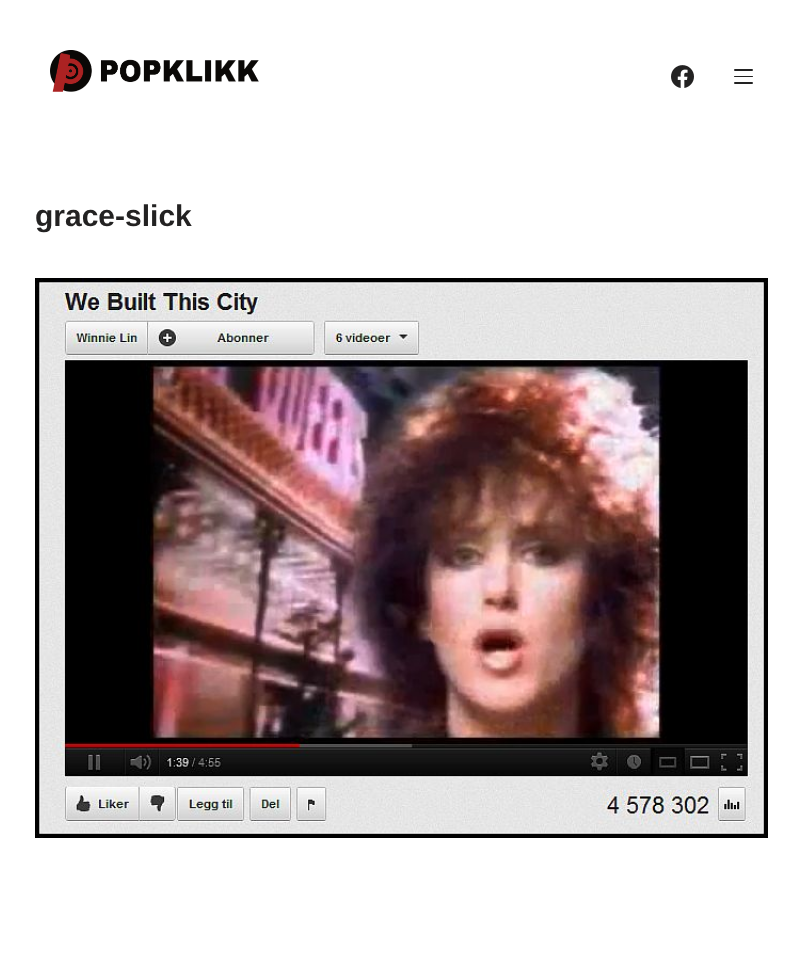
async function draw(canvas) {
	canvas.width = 803;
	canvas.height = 955;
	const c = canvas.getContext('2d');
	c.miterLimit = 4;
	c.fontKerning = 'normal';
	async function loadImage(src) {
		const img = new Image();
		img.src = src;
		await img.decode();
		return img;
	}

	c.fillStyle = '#fff';
	c.fillRect(0, 0, 803, 955);
	c.drawImage(await loadImage('img1.png'), 50, 50, 209, 42);
	c.drawImage(await loadImage('img2.png'), 671, 65, 23, 23);
	c.fillStyle = '#222';
	c.beginPath();
	c.roundRect(734, 69, 19, 2, 1);
	c.fill();
	c.beginPath();
	c.roundRect(734, 76, 19, 1, 0.5);
	c.fill();
	c.beginPath();
	c.roundRect(734, 82, 19, 2, 1);
	c.fill();
	c.font = 'bold 30px Liberation Sans';
	c.fillStyle = '#232222';
	c.fillText('grace-slick', 35, 226);
	c.drawImage(await loadImage('img3.png'), 35, 278, 733, 560);
}

draw(document.querySelector('canvas'));
